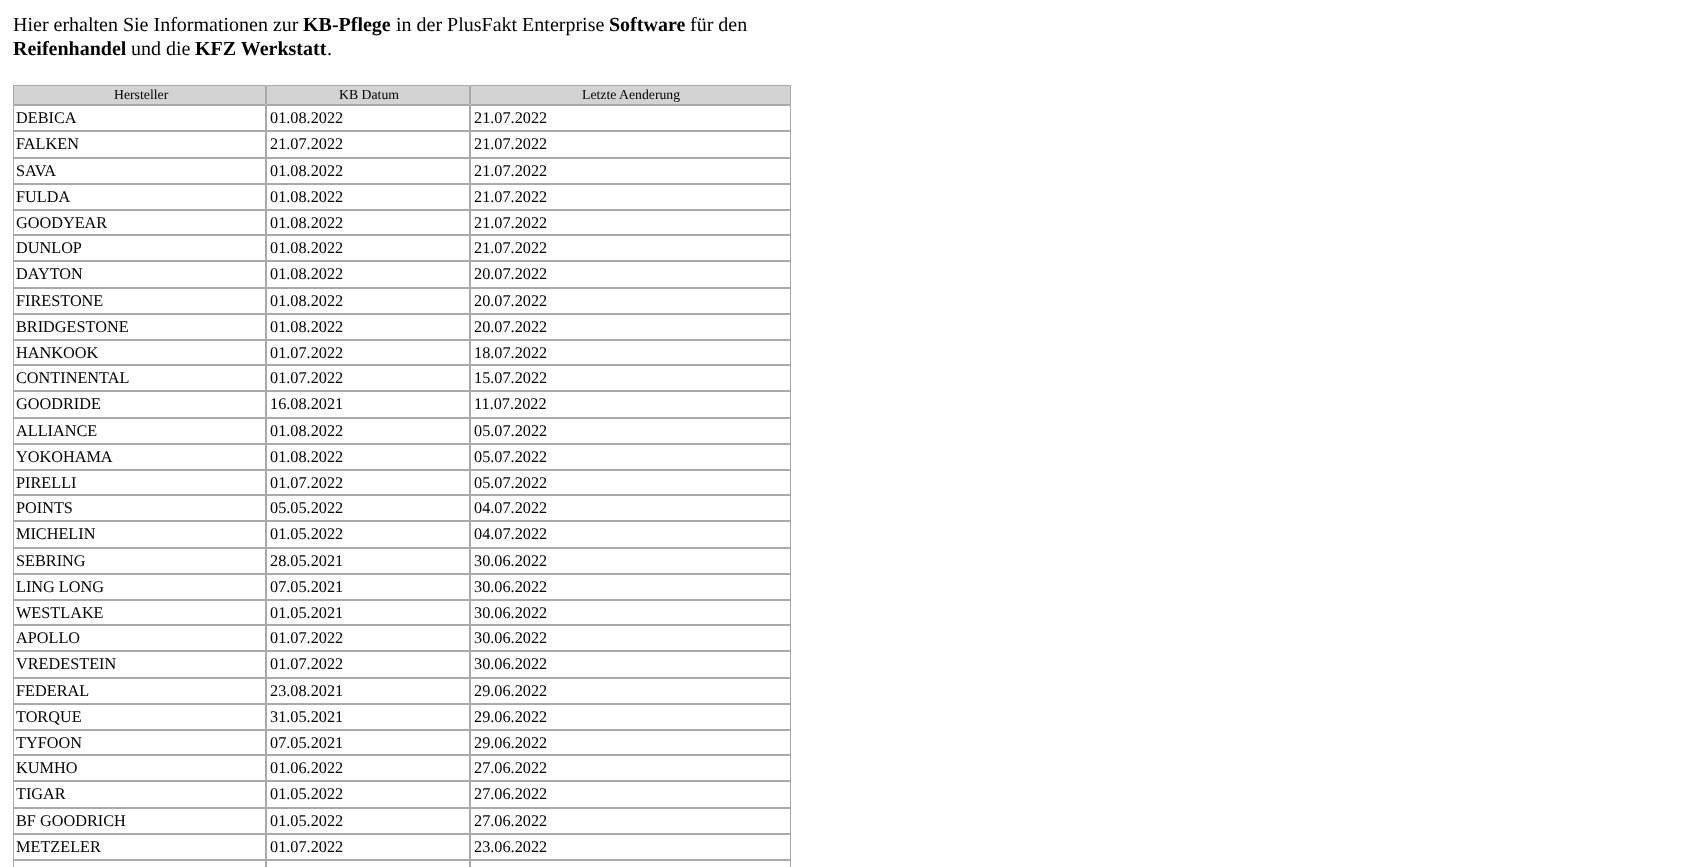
async function draw(canvas) {
	canvas.width = 1698;
	canvas.height = 867;
	const c = canvas.getContext('2d');
	c.miterLimit = 4;
	c.fontKerning = 'normal';

	c.fillStyle = '#fff';
	c.fillRect(0, 0, 1698, 867);
	c.font = '20px Liberation Serif';
	c.fillStyle = '#000';
	c.fillText('Hier erhalten Sie Informationen zur', 13, 31);
	c.font = 'bold 20px Liberation Serif';
	c.fillText('KB-Pflege', 303, 31);
	c.font = '20px Liberation Serif';
	c.fillText('in der PlusFakt Enterprise', 396, 31);
	c.font = 'bold 20px Liberation Serif';
	c.fillText('Software', 609, 31);
	c.font = '20px Liberation Serif';
	c.fillText('für den', 690, 31);
	c.font = 'bold 20px Liberation Serif';
	c.fillText('Reifenhandel', 13, 55);
	c.font = '20px Liberation Serif';
	c.fillText('und die', 131, 55);
	c.font = 'bold 20px Liberation Serif';
	c.fillText('KFZ Werkstatt', 195, 55);
	c.font = '20px Liberation Serif';
	c.fillText('.', 327, 55);
	c.fillStyle = '#d3d3d3';
	c.beginPath();
	c.rect(13.5, 85.5, 252, 19);
	c.fill();
	c.strokeStyle = '#a9a9a9';
	c.stroke();
	c.font = '13.75px Liberation Serif';
	c.fillStyle = '#000';
	c.fillText('Hersteller', 114, 99);
	c.fillStyle = '#d3d3d3';
	c.beginPath();
	c.rect(266.5, 85.5, 203, 19);
	c.fill();
	c.stroke();
	c.fillStyle = '#000';
	c.fillText('KB Datum', 339, 99);
	c.fillStyle = '#d3d3d3';
	c.beginPath();
	c.rect(470.5, 85.5, 320, 19);
	c.fill();
	c.stroke();
	c.fillStyle = '#000';
	c.fillText('Letzte Aenderung', 582, 99);
	c.strokeRect(13.5, 105.5, 252, 25);
	c.font = '16.25px Liberation Serif';
	c.fillText('DEBICA', 16, 123);
	c.strokeRect(266.5, 105.5, 203, 25);
	c.fillText('01.08.2022', 270, 123);
	c.strokeRect(470.5, 105.5, 320, 25);
	c.fillText('21.07.2022', 474, 123);
	c.strokeRect(13.5, 131.5, 252, 26);
	c.fillText('FALKEN', 16, 149);
	c.strokeRect(266.5, 131.5, 203, 26);
	c.fillText('21.07.2022', 270, 149);
	c.strokeRect(470.5, 131.5, 320, 26);
	c.fillText('21.07.2022', 474, 149);
	c.strokeRect(13.5, 158.5, 252, 25);
	c.fillText('SAVA', 16, 176);
	c.strokeRect(266.5, 158.5, 203, 25);
	c.fillText('01.08.2022', 270, 176);
	c.strokeRect(470.5, 158.5, 320, 25);
	c.fillText('21.07.2022', 474, 176);
	c.strokeRect(13.5, 184.5, 252, 25);
	c.fillText('FULDA', 16, 202);
	c.strokeRect(266.5, 184.5, 203, 25);
	c.fillText('01.08.2022', 270, 202);
	c.strokeRect(470.5, 184.5, 320, 25);
	c.fillText('21.07.2022', 474, 202);
	c.strokeRect(13.5, 210.5, 252, 24);
	c.fillText('GOODYEAR', 16, 228);
	c.strokeRect(266.5, 210.5, 203, 24);
	c.fillText('01.08.2022', 270, 228);
	c.strokeRect(470.5, 210.5, 320, 24);
	c.fillText('21.07.2022', 474, 228);
	c.strokeRect(13.5, 235.5, 252, 25);
	c.fillText('DUNLOP', 16, 253);
	c.strokeRect(266.5, 235.5, 203, 25);
	c.fillText('01.08.2022', 270, 253);
	c.strokeRect(470.5, 235.5, 320, 25);
	c.fillText('21.07.2022', 474, 253);
	c.strokeRect(13.5, 261.5, 252, 26);
	c.fillText('DAYTON', 16, 279);
	c.strokeRect(266.5, 261.5, 203, 26);
	c.fillText('01.08.2022', 270, 279);
	c.strokeRect(470.5, 261.5, 320, 26);
	c.fillText('20.07.2022', 474, 279);
	c.strokeRect(13.5, 288.5, 252, 25);
	c.fillText('FIRESTONE', 16, 306);
	c.strokeRect(266.5, 288.5, 203, 25);
	c.fillText('01.08.2022', 270, 306);
	c.strokeRect(470.5, 288.5, 320, 25);
	c.fillText('20.07.2022', 474, 306);
	c.strokeRect(13.5, 314.5, 252, 25);
	c.fillText('BRIDGESTONE', 16, 332);
	c.strokeRect(266.5, 314.5, 203, 25);
	c.fillText('01.08.2022', 270, 332);
	c.strokeRect(470.5, 314.5, 320, 25);
	c.fillText('20.07.2022', 474, 332);
	c.strokeRect(13.5, 340.5, 252, 24);
	c.fillText('HANKOOK', 16, 358);
	c.strokeRect(266.5, 340.5, 203, 24);
	c.fillText('01.07.2022', 270, 358);
	c.strokeRect(470.5, 340.5, 320, 24);
	c.fillText('18.07.2022', 474, 358);
	c.strokeRect(13.5, 365.5, 252, 25);
	c.fillText('CONTINENTAL', 16, 383);
	c.strokeRect(266.5, 365.5, 203, 25);
	c.fillText('01.07.2022', 270, 383);
	c.strokeRect(470.5, 365.5, 320, 25);
	c.fillText('15.07.2022', 474, 383);
	c.strokeRect(13.5, 391.5, 252, 26);
	c.fillText('GOODRIDE', 16, 409);
	c.strokeRect(266.5, 391.5, 203, 26);
	c.fillText('16.08.2021', 270, 409);
	c.strokeRect(470.5, 391.5, 320, 26);
	c.fillText('11.07.2022', 474, 409);
	c.strokeRect(13.5, 418.5, 252, 25);
	c.fillText('ALLIANCE', 16, 436);
	c.strokeRect(266.5, 418.5, 203, 25);
	c.fillText('01.08.2022', 270, 436);
	c.strokeRect(470.5, 418.5, 320, 25);
	c.fillText('05.07.2022', 474, 436);
	c.strokeRect(13.5, 444.5, 252, 25);
	c.fillText('YOKOHAMA', 16, 462);
	c.strokeRect(266.5, 444.5, 203, 25);
	c.fillText('01.08.2022', 270, 462);
	c.strokeRect(470.5, 444.5, 320, 25);
	c.fillText('05.07.2022', 474, 462);
	c.strokeRect(13.5, 470.5, 252, 24);
	c.fillText('PIRELLI', 16, 488);
	c.strokeRect(266.5, 470.5, 203, 24);
	c.fillText('01.07.2022', 270, 488);
	c.strokeRect(470.5, 470.5, 320, 24);
	c.fillText('05.07.2022', 474, 488);
	c.strokeRect(13.5, 495.5, 252, 25);
	c.fillText('POINTS', 16, 513);
	c.strokeRect(266.5, 495.5, 203, 25);
	c.fillText('05.05.2022', 270, 513);
	c.strokeRect(470.5, 495.5, 320, 25);
	c.fillText('04.07.2022', 474, 513);
	c.strokeRect(13.5, 521.5, 252, 26);
	c.fillText('MICHELIN', 16, 539);
	c.strokeRect(266.5, 521.5, 203, 26);
	c.fillText('01.05.2022', 270, 539);
	c.strokeRect(470.5, 521.5, 320, 26);
	c.fillText('04.07.2022', 474, 539);
	c.strokeRect(13.5, 548.5, 252, 25);
	c.fillText('SEBRING', 16, 566);
	c.strokeRect(266.5, 548.5, 203, 25);
	c.fillText('28.05.2021', 270, 566);
	c.strokeRect(470.5, 548.5, 320, 25);
	c.fillText('30.06.2022', 474, 566);
	c.strokeRect(13.5, 574.5, 252, 25);
	c.fillText('LING LONG', 16, 592);
	c.strokeRect(266.5, 574.5, 203, 25);
	c.fillText('07.05.2021', 270, 592);
	c.strokeRect(470.5, 574.5, 320, 25);
	c.fillText('30.06.2022', 474, 592);
	c.strokeRect(13.5, 600.5, 252, 24);
	c.fillText('WESTLAKE', 16, 618);
	c.strokeRect(266.5, 600.5, 203, 24);
	c.fillText('01.05.2021', 270, 618);
	c.strokeRect(470.5, 600.5, 320, 24);
	c.fillText('30.06.2022', 474, 618);
	c.strokeRect(13.5, 625.5, 252, 25);
	c.fillText('APOLLO', 16, 643);
	c.strokeRect(266.5, 625.5, 203, 25);
	c.fillText('01.07.2022', 270, 643);
	c.strokeRect(470.5, 625.5, 320, 25);
	c.fillText('30.06.2022', 474, 643);
	c.strokeRect(13.5, 651.5, 252, 26);
	c.fillText('VREDESTEIN', 16, 669);
	c.strokeRect(266.5, 651.5, 203, 26);
	c.fillText('01.07.2022', 270, 669);
	c.strokeRect(470.5, 651.5, 320, 26);
	c.fillText('30.06.2022', 474, 669);
	c.strokeRect(13.5, 678.5, 252, 25);
	c.fillText('FEDERAL', 16, 696);
	c.strokeRect(266.5, 678.5, 203, 25);
	c.fillText('23.08.2021', 270, 696);
	c.strokeRect(470.5, 678.5, 320, 25);
	c.fillText('29.06.2022', 474, 696);
	c.strokeRect(13.5, 704.5, 252, 25);
	c.fillText('TORQUE', 16, 722);
	c.strokeRect(266.5, 704.5, 203, 25);
	c.fillText('31.05.2021', 270, 722);
	c.strokeRect(470.5, 704.5, 320, 25);
	c.fillText('29.06.2022', 474, 722);
	c.strokeRect(13.5, 730.5, 252, 24);
	c.fillText('TYFOON', 16, 748);
	c.strokeRect(266.5, 730.5, 203, 24);
	c.fillText('07.05.2021', 270, 748);
	c.strokeRect(470.5, 730.5, 320, 24);
	c.fillText('29.06.2022', 474, 748);
	c.strokeRect(13.5, 755.5, 252, 25);
	c.fillText('KUMHO', 16, 773);
	c.strokeRect(266.5, 755.5, 203, 25);
	c.fillText('01.06.2022', 270, 773);
	c.strokeRect(470.5, 755.5, 320, 25);
	c.fillText('27.06.2022', 474, 773);
	c.strokeRect(13.5, 781.5, 252, 26);
	c.fillText('TIGAR', 16, 799);
	c.strokeRect(266.5, 781.5, 203, 26);
	c.fillText('01.05.2022', 270, 799);
	c.strokeRect(470.5, 781.5, 320, 26);
	c.fillText('27.06.2022', 474, 799);
	c.strokeRect(13.5, 808.5, 252, 25);
	c.fillText('BF GOODRICH', 16, 826);
	c.strokeRect(266.5, 808.5, 203, 25);
	c.fillText('01.05.2022', 270, 826);
	c.strokeRect(470.5, 808.5, 320, 25);
	c.fillText('27.06.2022', 474, 826);
	c.strokeRect(13.5, 834.5, 252, 25);
	c.fillText('METZELER', 16, 852);
	c.strokeRect(266.5, 834.5, 203, 25);
	c.fillText('01.07.2022', 270, 852);
	c.strokeRect(470.5, 834.5, 320, 25);
	c.fillText('23.06.2022', 474, 852);
	c.strokeRect(13.5, 860.5, 252, 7);
	c.strokeRect(266.5, 860.5, 203, 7);
	c.strokeRect(470.5, 860.5, 320, 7);
}

draw(document.querySelector('canvas'));
